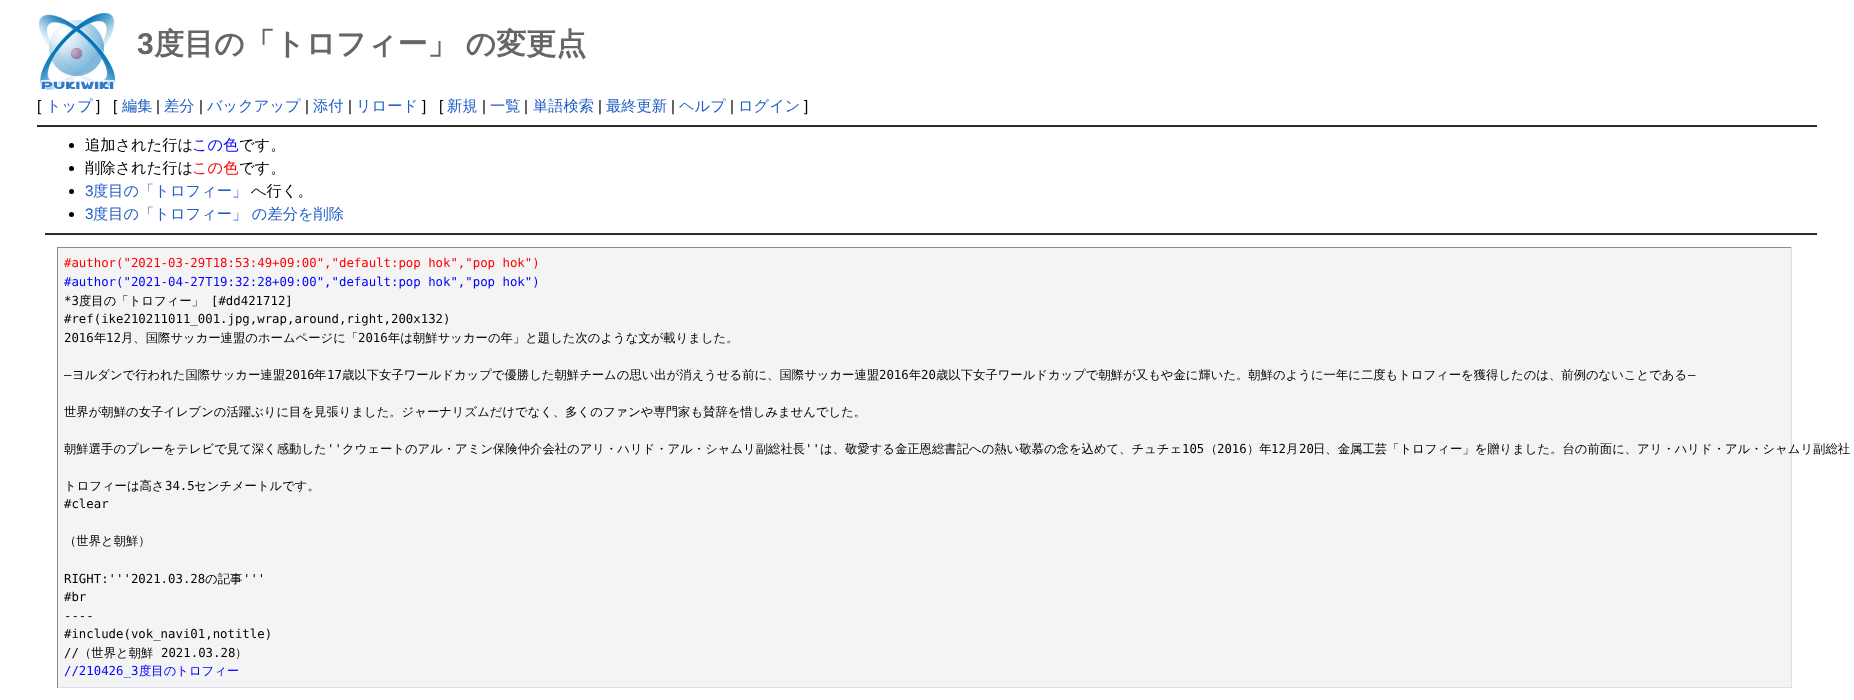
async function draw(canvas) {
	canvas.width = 1854;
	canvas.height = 700;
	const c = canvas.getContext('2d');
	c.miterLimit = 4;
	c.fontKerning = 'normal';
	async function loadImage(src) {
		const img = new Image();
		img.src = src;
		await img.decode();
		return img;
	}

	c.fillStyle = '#fff';
	c.fillRect(0, 0, 1854, 700);
	c.drawImage(await loadImage('img1.png'), 39, 13, 76, 77);
	c.font = 'bold 30px Liberation Sans';
	c.fillStyle = '#666';
	c.fillText('3', 137, 54);
	c.wordSpacing = '-1px';
	c.font = 'bold 30px WenQuanYi Zen Hei';
	c.fillText('度目の「トロフィー」 の変更点', 154, 54);
	c.wordSpacing = '0px';
	c.font = '15.25px Liberation Sans';
	c.fillStyle = '#000';
	c.fillText('[', 37, 111);
	c.font = '500 15.25px WenQuanYi Zen Hei';
	c.fillStyle = '#215dc6';
	c.fillText('トップ', 46, 111);
	c.font = '15.25px Liberation Sans';
	c.fillStyle = '#000';
	c.fillText(']', 96, 111);
	c.fillText('[', 113, 111);
	c.font = '500 15.25px WenQuanYi Zen Hei';
	c.fillStyle = '#215dc6';
	c.fillText('編集', 122, 111);
	c.font = '15.25px Liberation Sans';
	c.fillStyle = '#000';
	c.fillText('|', 156, 111);
	c.font = '500 15.25px WenQuanYi Zen Hei';
	c.fillStyle = '#215dc6';
	c.fillText('差分', 164, 111);
	c.font = '15.25px Liberation Sans';
	c.fillStyle = '#000';
	c.fillText('|', 199, 111);
	c.font = '500 15.25px WenQuanYi Zen Hei';
	c.fillStyle = '#215dc6';
	c.fillText('バックアップ', 207, 111);
	c.font = '15.25px Liberation Sans';
	c.fillStyle = '#000';
	c.fillText('|', 305, 111);
	c.font = '500 15.25px WenQuanYi Zen Hei';
	c.fillStyle = '#215dc6';
	c.fillText('添付', 313, 111);
	c.font = '15.25px Liberation Sans';
	c.fillStyle = '#000';
	c.fillText('|', 348, 111);
	c.font = '500 15.25px WenQuanYi Zen Hei';
	c.fillStyle = '#215dc6';
	c.fillText('リロード', 356, 111);
	c.font = '15.25px Liberation Sans';
	c.fillStyle = '#000';
	c.fillText(']', 422, 111);
	c.fillText('[', 439, 111);
	c.font = '500 15.25px WenQuanYi Zen Hei';
	c.fillStyle = '#215dc6';
	c.fillText('新規', 447, 111);
	c.font = '15.25px Liberation Sans';
	c.fillStyle = '#000';
	c.fillText('|', 482, 111);
	c.font = '500 15.25px WenQuanYi Zen Hei';
	c.fillStyle = '#215dc6';
	c.fillText('一覧', 490, 111);
	c.font = '15.25px Liberation Sans';
	c.fillStyle = '#000';
	c.fillText('|', 524, 111);
	c.font = '500 15.25px WenQuanYi Zen Hei';
	c.fillStyle = '#215dc6';
	c.fillText('単語検索', 533, 111);
	c.font = '15.25px Liberation Sans';
	c.fillStyle = '#000';
	c.fillText('|', 598, 111);
	c.font = '500 15.25px WenQuanYi Zen Hei';
	c.fillStyle = '#215dc6';
	c.fillText('最終更新', 606, 111);
	c.font = '15.25px Liberation Sans';
	c.fillStyle = '#000';
	c.fillText('|', 671, 111);
	c.font = '500 15.25px WenQuanYi Zen Hei';
	c.fillStyle = '#215dc6';
	c.fillText('ヘルプ', 679, 111);
	c.font = '15.25px Liberation Sans';
	c.fillStyle = '#000';
	c.fillText('|', 730, 111);
	c.font = '500 15.25px WenQuanYi Zen Hei';
	c.fillStyle = '#215dc6';
	c.fillText('ログイン', 738, 111);
	c.font = '15.25px Liberation Sans';
	c.fillStyle = '#000';
	c.fillText(']', 804, 111);
	c.fillStyle = '#333';
	c.fillRect(37, 125, 1780, 1);
	c.fillStyle = '#222';
	c.fillRect(37, 126, 1780, 1);
	c.fillStyle = '#000';
	c.beginPath();
	c.arc(71.5, 145.5, 2.5, 0, 2 * Math.PI);
	c.fill();
	c.font = '500 15.25px WenQuanYi Zen Hei';
	c.fillText('追加された行は', 85, 150);
	c.fillStyle = '#00f';
	c.fillText('この色', 192, 150);
	c.fillStyle = '#000';
	c.fillText('です。', 239, 150);
	c.beginPath();
	c.arc(71.5, 168.5, 2.5, 0, 2 * Math.PI);
	c.fill();
	c.fillText('削除された行は', 85, 173);
	c.fillStyle = '#f00';
	c.fillText('この色', 192, 173);
	c.fillStyle = '#000';
	c.fillText('です。', 239, 173);
	c.beginPath();
	c.arc(71.5, 191.5, 2.5, 0, 2 * Math.PI);
	c.fill();
	c.font = '15.25px Liberation Sans';
	c.fillStyle = '#215dc6';
	c.fillText('3', 85, 196);
	c.font = '500 15.25px WenQuanYi Zen Hei';
	c.fillText('度目の「トロフィー」', 93, 196);
	c.fillStyle = '#000';
	c.fillText('へ行く。', 251, 196);
	c.beginPath();
	c.arc(71.5, 214.5, 2.5, 0, 2 * Math.PI);
	c.fill();
	c.font = '15.25px Liberation Sans';
	c.fillStyle = '#215dc6';
	c.fillText('3', 85, 219);
	c.font = '500 15.25px WenQuanYi Zen Hei';
	c.fillText('度目の「トロフィー」 の差分を削除', 93, 219);
	for (const [x, y, w, h, color] of [
		[45, 233, 1772, 1, '#333'],
		[45, 234, 1772, 1, '#222'],
		[58, 248, 1733, 439, '#f4f4f4'],
		[57, 247, 1735, 1, '#889'],
		[1791, 247, 1, 441, '#dde'],
		[57, 687, 1735, 1, '#dde'],
		[57, 247, 1, 441, '#889'],
	]) {
		c.fillStyle = color;
		c.fillRect(x, y, w, h);
	}
	c.font = '12.35px DejaVu Sans Mono';
	c.fillStyle = '#f00';
	c.fillText('#author("2021-03-29T18:53:49+09:00","default:pop hok","pop hok")', 64, 267);
	c.fillStyle = '#00f';
	c.fillText('#author("2021-04-27T19:32:28+09:00","default:pop hok","pop hok")', 64, 286);
	c.fillStyle = '#000';
	c.fillText('*3', 64, 305);
	c.font = '500 12.35px WenQuanYi Zen Hei';
	c.fillText('度目の「トロフィー」', 79, 305);
	c.font = '12.35px DejaVu Sans Mono';
	for (const [text, x, y] of [
		['[#dd421712]', 211, 305],
		['#ref(ike210211011_001.jpg,wrap,around,right,200x132)', 64, 323],
		['2016', 64, 342],
	]) {
		c.fillText(text, x, y);
	}
	c.font = '500 12.35px WenQuanYi Zen Hei';
	c.fillText('年', 94, 342);
	c.font = '12.35px DejaVu Sans Mono';
	c.fillText('12', 106, 342);
	c.font = '500 12.35px WenQuanYi Zen Hei';
	c.fillText('月、国際サッカー連盟のホームページに「', 121, 342);
	c.font = '12.35px DejaVu Sans Mono';
	c.fillText('2016', 358, 342);
	c.font = '500 12.35px WenQuanYi Zen Hei';
	c.fillText('年は朝鮮サッカーの年」と題した次のような文が載りました。', 388, 342);
	c.font = '12.35px DejaVu Sans Mono';
	c.fillText('―', 64, 379);
	c.font = '500 12.35px WenQuanYi Zen Hei';
	c.fillText('ヨルダンで行われた国際サッカー連盟', 72, 379);
	c.font = '12.35px DejaVu Sans Mono';
	c.fillText('2016', 285, 379);
	c.font = '500 12.35px WenQuanYi Zen Hei';
	c.fillText('年', 314, 379);
	c.font = '12.35px DejaVu Sans Mono';
	c.fillText('17', 327, 379);
	c.font = '500 12.35px WenQuanYi Zen Hei';
	c.fillText('歳以下女子ワールドカップで優勝した朝鮮チームの思い出が消えうせる前に、国際サッカー連盟', 342, 379);
	c.font = '12.35px DejaVu Sans Mono';
	c.fillText('2016', 879, 379);
	c.font = '500 12.35px WenQuanYi Zen Hei';
	c.fillText('年', 909, 379);
	c.font = '12.35px DejaVu Sans Mono';
	c.fillText('20', 921, 379);
	c.font = '500 12.35px WenQuanYi Zen Hei';
	c.fillText('歳以下女子ワールドカップで朝鮮が又もや金に輝いた。朝鮮のように一年に二度もトロフィーを獲得したのは、前例のないことである', 936, 379);
	c.font = '12.35px DejaVu Sans Mono';
	c.fillText('―', 1688, 379);
	c.font = '500 12.35px WenQuanYi Zen Hei';
	c.fillText('世界が朝鮮の女子イレブンの活躍ぶりに目を見張りました。ジャーナリズムだけでなく、多くのファンや専門家も賛辞を惜しみませんでした。', 64, 416);
	c.fillText('朝鮮選手のプレーをテレビで見て深く感動した', 64, 453);
	c.font = '12.35px DejaVu Sans Mono';
	c.fillText('\'\'', 327, 453);
	c.font = '500 12.35px WenQuanYi Zen Hei';
	c.fillText('クウェートのアル・アミン保険仲介会社のアリ・ハリド・アル・シャムリ副総社長', 342, 453);
	c.font = '12.35px DejaVu Sans Mono';
	c.fillText('\'\'', 805, 453);
	c.font = '500 12.35px WenQuanYi Zen Hei';
	c.fillText('は、敬愛する金正恩総書記への熱い敬慕の念を込めて、チュチェ', 820, 453);
	c.font = '12.35px DejaVu Sans Mono';
	c.fillText('105', 1182, 453);
	c.font = '500 12.35px WenQuanYi Zen Hei';
	c.fillText('（', 1205, 453);
	c.font = '12.35px DejaVu Sans Mono';
	c.fillText('2016', 1217, 453);
	c.font = '500 12.35px WenQuanYi Zen Hei';
	c.fillText('）年', 1247, 453);
	c.font = '12.35px DejaVu Sans Mono';
	c.fillText('12', 1271, 453);
	c.font = '500 12.35px WenQuanYi Zen Hei';
	c.fillText('月', 1286, 453);
	c.font = '12.35px DejaVu Sans Mono';
	c.fillText('20', 1299, 453);
	c.font = '500 12.35px WenQuanYi Zen Hei';
	c.fillText('日、金属工芸「トロフィー」を贈りました。台の前面に、アリ・ハリド・アル・シャムリ副総社', 1313, 453);
	c.fillText('トロフィーは高さ', 64, 490);
	c.font = '12.35px DejaVu Sans Mono';
	c.fillText('34.5', 165, 490);
	c.font = '500 12.35px WenQuanYi Zen Hei';
	c.fillText('センチメートルです。', 194, 490);
	c.font = '12.35px DejaVu Sans Mono';
	c.fillText('#clear', 64, 508);
	c.font = '500 12.35px WenQuanYi Zen Hei';
	c.fillText('（世界と朝鮮）', 64, 545);
	c.font = '12.35px DejaVu Sans Mono';
	c.fillText('RIGHT:\'\'\'2021.03.28', 64, 583);
	c.font = '500 12.35px WenQuanYi Zen Hei';
	c.fillText('の記事', 205, 583);
	c.font = '12.35px DejaVu Sans Mono';
	for (const [text, x, y] of [
		['\'\'\'', 243, 583],
		['#br', 64, 601],
		['----', 64, 620],
		['#include(vok_navi01,notitle)', 64, 638],
		['//', 64, 657],
	]) {
		c.fillText(text, x, y);
	}
	c.font = '500 12.35px WenQuanYi Zen Hei';
	c.fillText('（世界と朝鮮', 79, 657);
	c.font = '12.35px DejaVu Sans Mono';
	c.fillText('2021.03.28', 161, 657);
	c.font = '500 12.35px WenQuanYi Zen Hei';
	c.fillText('）', 235, 657);
	c.font = '12.35px DejaVu Sans Mono';
	c.fillStyle = '#00f';
	c.fillText('//210426_3', 64, 675);
	c.font = '500 12.35px WenQuanYi Zen Hei';
	c.fillText('度目のトロフィー', 139, 675);
}

draw(document.querySelector('canvas'));
